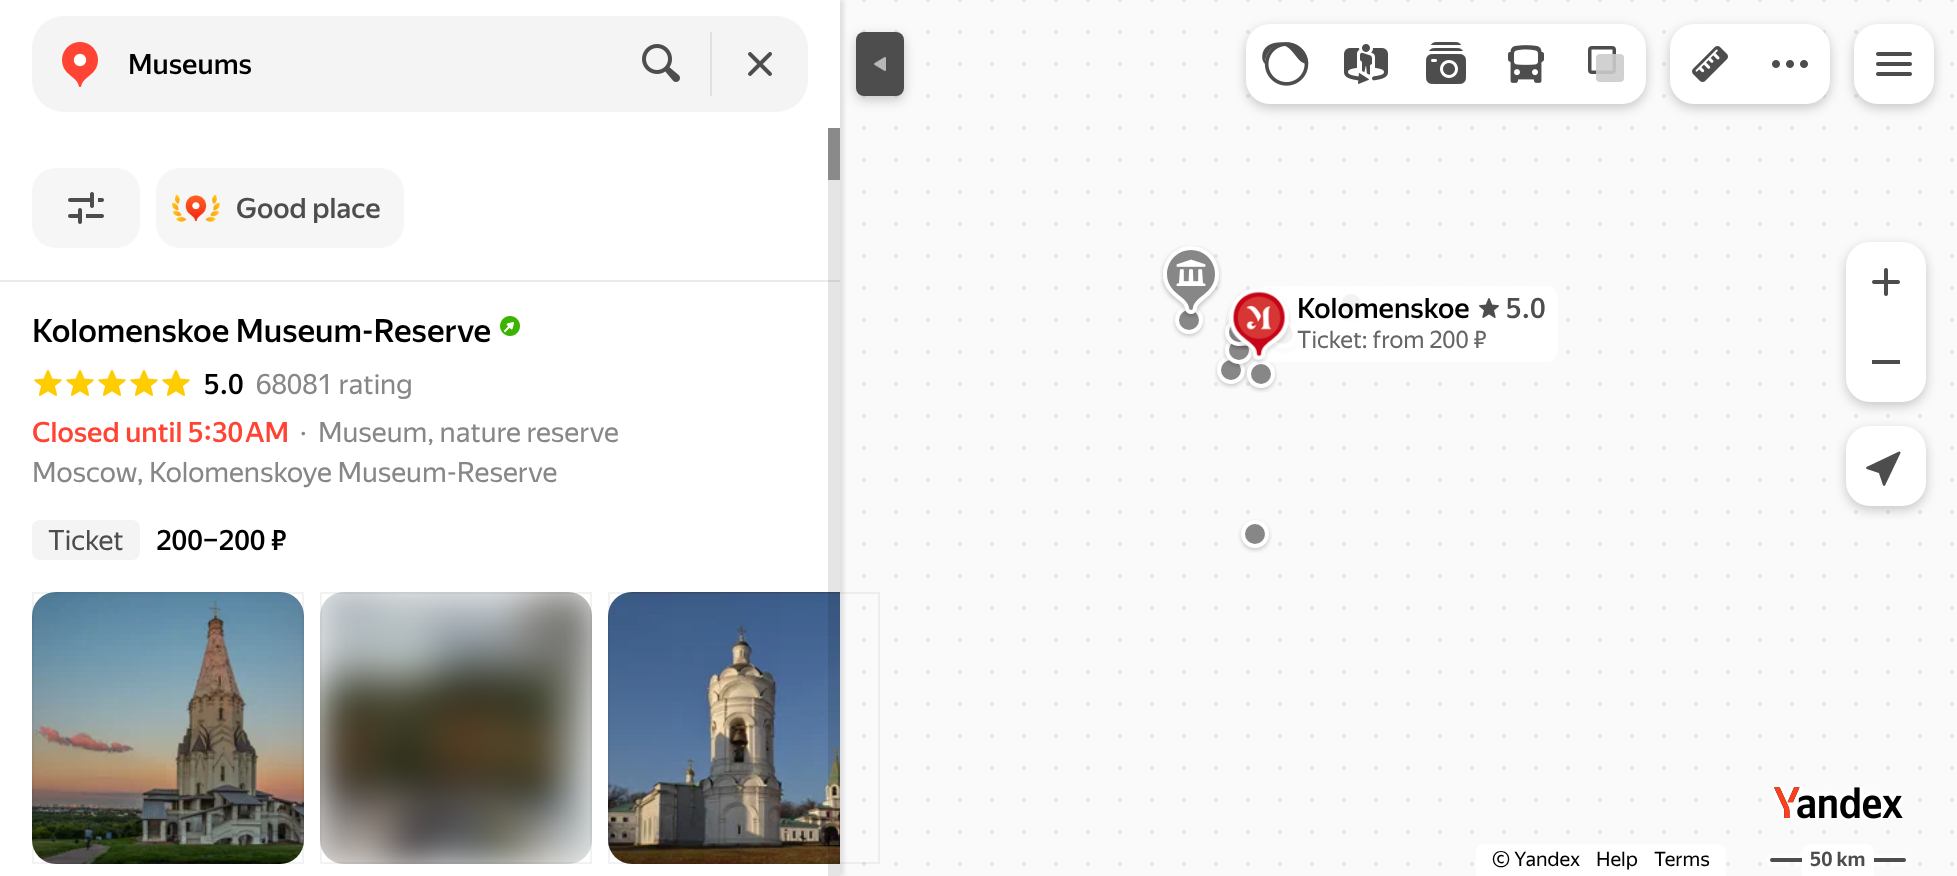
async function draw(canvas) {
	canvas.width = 1957;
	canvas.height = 876;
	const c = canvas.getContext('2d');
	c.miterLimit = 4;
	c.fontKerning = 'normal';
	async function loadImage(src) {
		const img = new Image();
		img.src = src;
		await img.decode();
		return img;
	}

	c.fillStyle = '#fff';
	c.fillRect(0, 0, 1957, 876);
	c.drawImage(await loadImage('img1.png'), 840, 0, 1117, 876);
	c.fillStyle = '#0000001a';
	c.filter = 'blur(2px)';
	c.beginPath();
	c.rect(4, 0, 840, 876);
	c.fill();
	c.filter = 'none';
	c.fillStyle = '#00000033';
	c.filter = 'blur(6px)';
	c.beginPath();
	c.roundRect(856, 36, 48, 64, 8);
	c.fill();
	c.filter = 'none';
	c.fillStyle = '#fff';
	c.fillRect(1, 0, 839, 876);
	c.fillStyle = '#f4f4f4';
	c.beginPath();
	c.roundRect(32, 16, 776, 96, 32);
	c.fill();
	c.drawImage(await loadImage('img2.png'), 62, 42, 36, 45);
	c.font = '500 28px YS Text';
	c.fillStyle = '#000';
	c.fillText('Museums', 128, 74);
	c.drawImage(await loadImage('img3.png'), 642, 44, 38, 38);
	c.fillStyle = '#e0e0e0';
	c.fillRect(710, 32, 2, 64);
	c.drawImage(await loadImage('img4.png'), 748, 52, 24, 24);
	c.fillStyle = '#00000033';
	c.filter = 'blur(6px)';
	c.beginPath();
	c.roundRect(1246, 28, 400, 80, 24);
	c.fill();
	c.filter = 'none';
	c.fillStyle = '#fff';
	c.beginPath();
	c.roundRect(1246, 24, 80, 80, [24, 0, 0, 24]);
	c.fill();
	c.drawImage(await loadImage('img5.png'), 1262, 42, 47, 44);
	c.fillRect(1326, 24, 240, 80);
	c.drawImage(await loadImage('img6.png'), 1344, 44, 44, 40);
	c.beginPath();
	c.roundRect(1566, 24, 80, 80, [0, 24, 24, 0]);
	c.fill();
	c.drawImage(await loadImage('img7.png'), 1588, 46, 36, 36);
	c.drawImage(await loadImage('img8.png'), 1426, 42, 40, 42);
	c.drawImage(await loadImage('img9.png'), 1508, 45, 36, 38);
	c.fillStyle = '#00000033';
	c.filter = 'blur(6px)';
	c.beginPath();
	c.roundRect(1670, 28, 160, 80, 24);
	c.fill();
	c.filter = 'none';
	c.fillStyle = '#fff';
	c.beginPath();
	c.roundRect(1670, 24, 80, 80, [24, 0, 0, 24]);
	c.fill();
	c.drawImage(await loadImage('img10.png'), 1692, 46, 36, 36);
	c.beginPath();
	c.roundRect(1750, 24, 80, 80, [0, 24, 24, 0]);
	c.fill();
	c.drawImage(await loadImage('img11.png'), 1772, 60, 36, 8);
	c.fillStyle = '#00000033';
	c.filter = 'blur(6px)';
	c.beginPath();
	c.roundRect(1854, 28, 80, 80, 24);
	c.fill();
	c.filter = 'none';
	c.fillStyle = '#fff';
	c.beginPath();
	c.roundRect(1854, 24, 80, 80, 24);
	c.fill();
	c.drawImage(await loadImage('img12.png'), 1876, 52, 36, 24);
	c.fillStyle = '#00000033';
	c.filter = 'blur(6px)';
	c.beginPath();
	c.roundRect(1846, 246, 80, 160, 24);
	c.fill();
	c.filter = 'none';
	c.fillStyle = '#fff';
	c.beginPath();
	c.roundRect(1846, 242, 80, 80, [24, 24, 0, 0]);
	c.fill();
	c.drawImage(await loadImage('img13.png'), 1872, 268, 28, 28);
	c.beginPath();
	c.roundRect(1846, 322, 80, 80, [0, 0, 24, 24]);
	c.fill();
	c.fillStyle = '#4d4d4d';
	c.fillRect(1872, 360, 28, 4);
	c.fillStyle = '#00000033';
	c.filter = 'blur(6px)';
	c.beginPath();
	c.roundRect(1846, 430, 80, 80, 24);
	c.fill();
	c.filter = 'none';
	c.fillStyle = '#fff';
	c.beginPath();
	c.roundRect(1846, 426, 80, 80, 24);
	c.fill();
	c.drawImage(await loadImage('img14.png'), 1866, 451, 35, 35);
	c.fillStyle = '#4d4d4d';
	c.beginPath();
	c.roundRect(856, 32, 48, 64, 8);
	c.fill();
	c.drawImage(await loadImage('img15.png'), 874, 57, 12, 14);
	c.fillStyle = '#ebebeb';
	c.fillRect(0, 280, 840, 2);
	c.fillStyle = '#f6f6f6';
	c.beginPath();
	c.roundRect(32, 168, 108, 80, 24);
	c.fill();
	c.drawImage(await loadImage('img16.png'), 68, 192, 36, 32);
	c.beginPath();
	c.roundRect(156, 168, 248, 80, 24);
	c.fill();
	c.drawImage(await loadImage('img17.png'), 172, 194, 48, 28);
	c.fillStyle = '#4d4d4d';
	c.fillText('Good place', 236, 218);
	c.font = '500 32px YS Text';
	c.fillStyle = '#000';
	c.fillText('Kolomenskoe Museum-Reserve', 32, 342);
	c.drawImage(await loadImage('img18.png'), 500, 316, 20, 20);
	c.drawImage(await loadImage('img19.png'), 34, 370, 28, 26);
	c.drawImage(await loadImage('img19.png'), 66, 370, 28, 26);
	c.drawImage(await loadImage('img19.png'), 98, 370, 28, 26);
	c.drawImage(await loadImage('img19.png'), 130, 370, 28, 26);
	c.drawImage(await loadImage('img19.png'), 162, 370, 28, 26);
	c.font = '500 28px YS Text';
	c.fillText('5.0', 204, 394);
	c.font = '28px YS Text';
	c.fillStyle = '#878787';
	c.fillText('68081 rating', 256, 394);
	c.font = '500 28px YS Text';
	c.fillStyle = '#f43';
	c.fillText('Closed until 5:30 AM', 32, 442);
	c.font = '28px YS Text';
	c.fillStyle = '#878787';
	for (const [text, x, y] of [
		['·', 300, 442],
		['Museum, nature reserve', 318, 442],
		['Moscow, Kolomenskoye Museum-Reserve', 32, 482],
	]) {
		c.fillText(text, x, y);
	}
	c.fillStyle = '#f4f4f4';
	c.beginPath();
	c.roundRect(32, 520, 108, 40, 8);
	c.fill();
	c.fillStyle = '#4d4d4d';
	c.fillText('Ticket', 48, 550);
	c.font = '500 28px YS Text';
	c.fillStyle = '#000';
	c.fillText('200–200 ₽', 156, 550);
	c.drawImage(await loadImage('img20.png'), 32, 592, 272, 272);
	c.strokeStyle = '#0000000d';
	c.lineWidth = 2;
	c.strokeRect(33, 593, 270, 270);
	c.fillStyle = '#f4f4f4';
	c.beginPath();
	c.roundRect(320, 592, 272, 272, 24);
	c.fill();
	c.drawImage(await loadImage('img21.png'), 320, 592, 272, 272);
	c.strokeRect(321, 593, 270, 270);
	c.drawImage(await loadImage('img22.png'), 608, 592, 232, 272);
	c.strokeRect(609, 593, 270, 270);
	c.fillStyle = '#8a8a8a';
	c.fillRect(828, 128, 12, 52);
	c.fillStyle = '#0000001a';
	c.fillRect(828, 180, 12, 696);
	c.drawImage(await loadImage('img23.png'), 1774, 787, 129, 32);
	c.fillStyle = '#fff';
	c.beginPath();
	c.roundRect(1476, 844, 250, 32, [8, 8, 0, 0]);
	c.fill();
	c.font = '20px YS Text';
	c.fillStyle = '#000';
	for (const [text, x, y] of [
		['© Yandex', 1492, 866],
		['Help', 1596, 866],
		['Terms', 1654, 866],
	]) {
		c.fillText(text, x, y);
	}
	c.fillStyle = '#ffffff99';
	c.beginPath();
	c.roundRect(1766, 854, 144, 12, 6);
	c.fill();
	c.fillStyle = '#4d4d4d';
	c.beginPath();
	c.roundRect(1770, 858, 136, 4, 2);
	c.fill();
	c.fillStyle = '#fff';
	c.beginPath();
	c.roundRect(1802, 844, 72, 32, [8, 8, 0, 0]);
	c.fill();
	c.font = 'bold 20px YS Text';
	c.fillStyle = '#4d4d4d';
	c.fillText('50 km', 1810, 866);
	c.drawImage(await loadImage('img28.png'), 1172, 306, 34, 33);
	c.drawImage(await loadImage('img24.png'), 1160, 245, 62, 73);
	c.drawImage(await loadImage('img25.png'), 1176, 259, 30, 27);
	c.drawImage(await loadImage('img26.png'), 1234, 289, 23, 17);
	c.drawImage(await loadImage('img27.png'), 1334, 289, 34, 34);
	c.drawImage(await loadImage('img29.png'), 1225, 305, 10, 22);
	c.drawImage(await loadImage('img30.png'), 1235, 293, 12, 10);
	c.drawImage(await loadImage('img36.png'), 1270, 322, 32, 33);
	c.drawImage(await loadImage('img34.png'), 1269, 320, 31, 33);
	c.drawImage(await loadImage('img40.png'), 1252, 347, 2, 4);
	c.drawImage(await loadImage('img41.png'), 1252, 347, 2, 3);
	c.drawImage(await loadImage('img42.png'), 1252, 347, 3, 5);
	c.drawImage(await loadImage('img43.png'), 1214, 356, 34, 33);
	c.drawImage(await loadImage('img35.png'), 1222, 340, 33, 29);
	c.drawImage(await loadImage('img44.png'), 1244, 359, 34, 34);
	c.fillStyle = '#ffffffe6';
	c.beginPath();
	c.roundRect(1258, 286, 36, 76, [12, 0, 0, 12]);
	c.fill();
	c.drawImage(await loadImage('img37.png'), 1231, 343, 22, 7);
	c.drawImage(await loadImage('img38.png'), 1240, 343, 10, 3);
	c.drawImage(await loadImage('img39.png'), 1243, 343, 8, 4);
	c.drawImage(await loadImage('img33.png'), 1222, 320, 29, 30);
	c.drawImage(await loadImage('img31.png'), 1227, 289, 64, 75);
	c.beginPath();
	c.roundRect(1294, 286, 264, 76, [0, 12, 12, 0]);
	c.fill();
	c.font = '500 28px YS Text';
	c.fillStyle = '#000';
	c.fillText('Kolomenskoe', 1297, 318);
	c.drawImage(await loadImage('img32.png'), 1479, 298, 20, 20);
	c.fillStyle = '#4d4d4d';
	c.fillText('5.0', 1506, 318);
	c.font = '24px YS Text';
	c.fillStyle = '#666';
	c.fillText('Ticket: from 200 ₽', 1297, 348);
	c.drawImage(await loadImage('img45.png'), 1238, 519, 34, 34);
}

draw(document.querySelector('canvas'));
